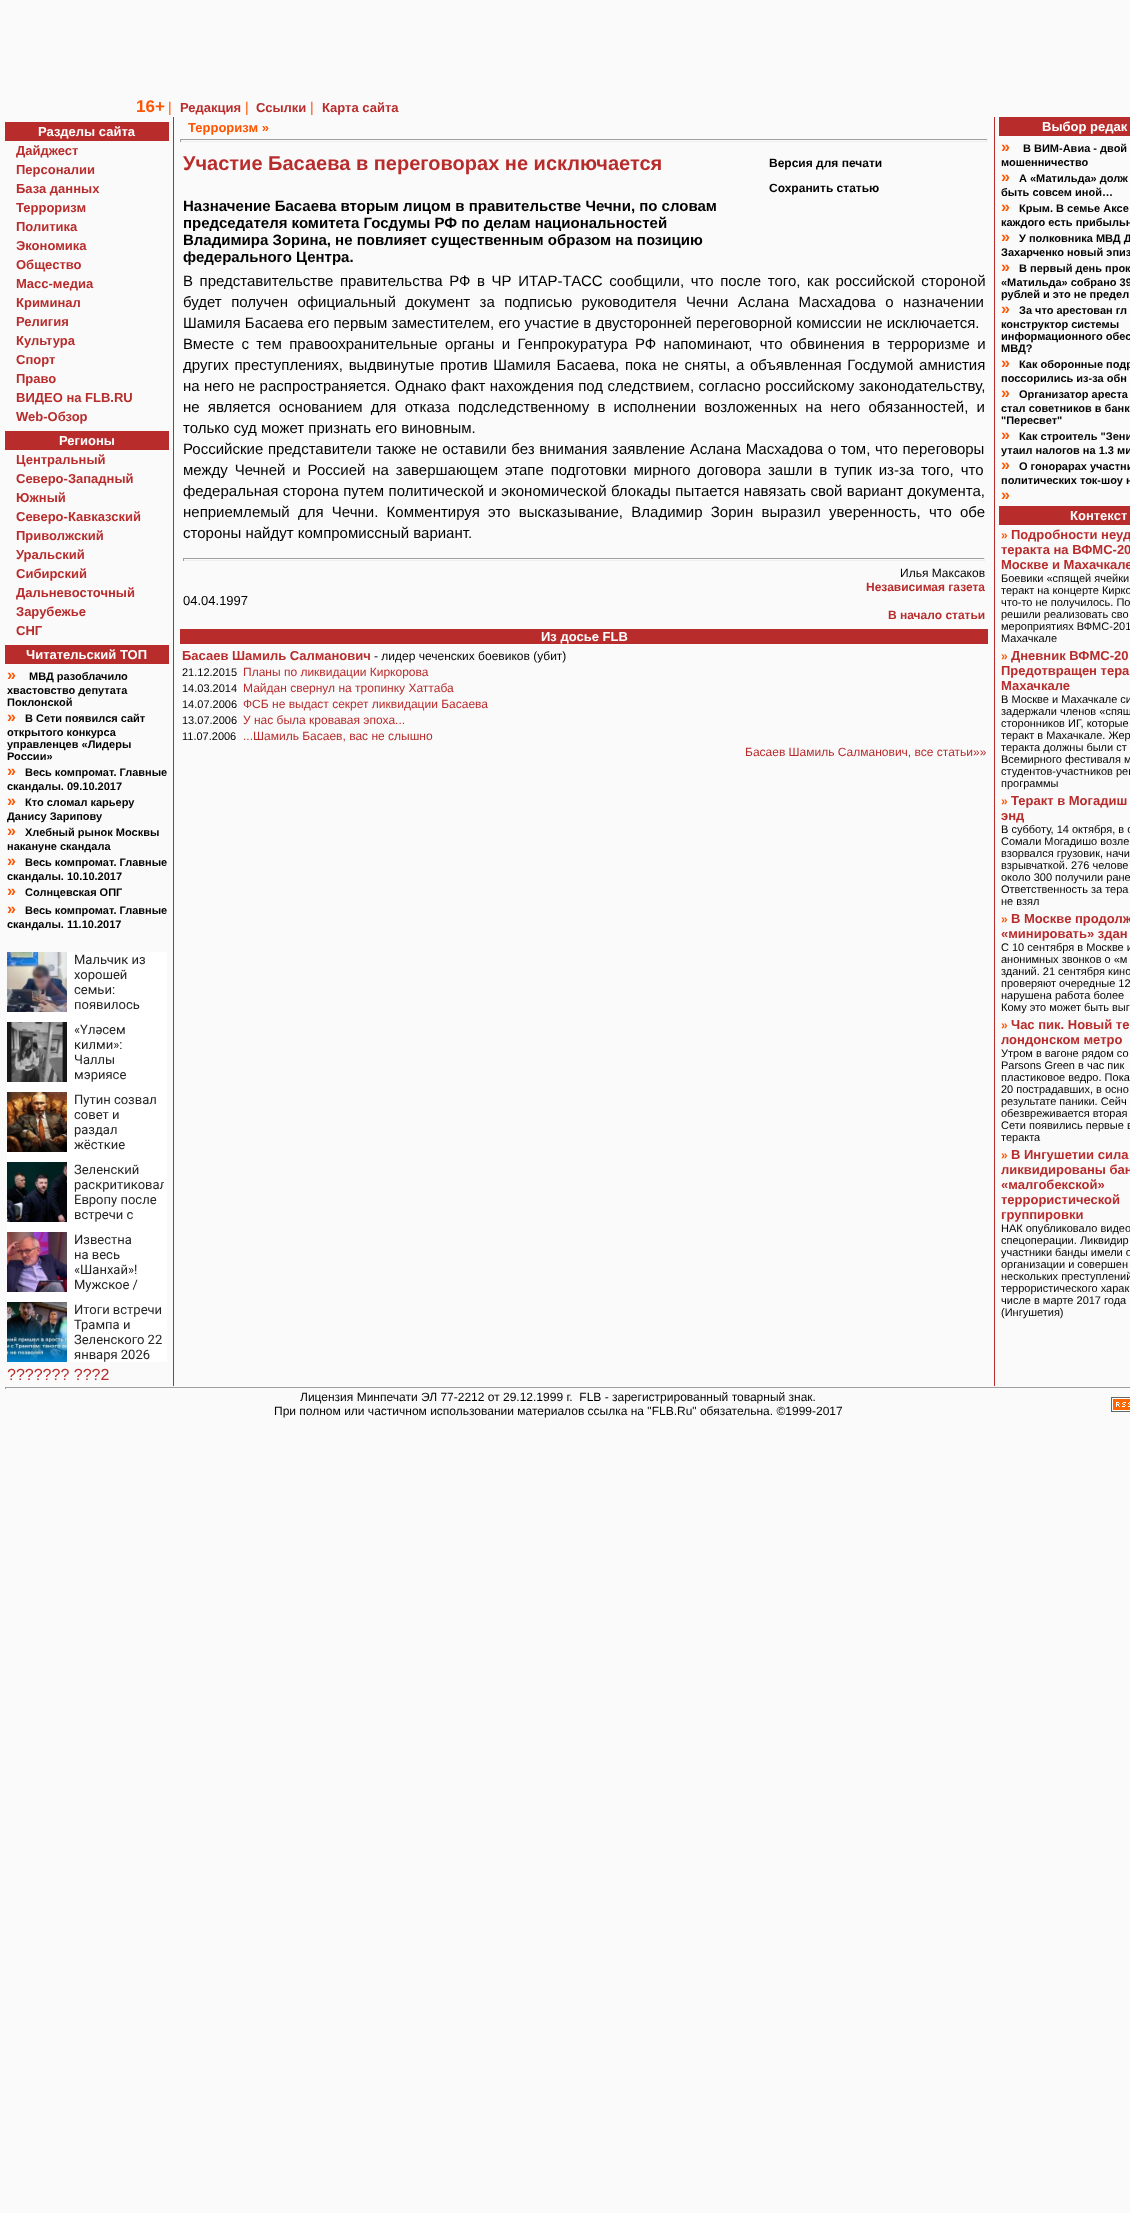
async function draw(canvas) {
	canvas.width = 1130;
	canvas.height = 2213;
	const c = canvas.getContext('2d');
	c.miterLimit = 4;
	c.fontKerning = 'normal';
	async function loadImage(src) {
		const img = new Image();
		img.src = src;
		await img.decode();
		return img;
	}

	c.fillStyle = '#fafafa';
	c.fillRect(0, 0, 1130, 2213);
	c.font = 'bold 17px Liberation Sans';
	c.fillStyle = '#f50';
	c.fillText('16+', 136, 112);
	c.font = '14px Liberation Sans';
	c.fillText('|', 168, 112);
	c.font = 'bold 13px Liberation Sans';
	c.fillStyle = '#b82c2c';
	c.fillText('Редакция', 180, 112);
	c.font = '14px Liberation Sans';
	c.fillStyle = '#f50';
	c.fillText('|', 245, 112);
	c.font = 'bold 13px Liberation Sans';
	c.fillStyle = '#b82c2c';
	c.fillText('Ссылки', 256, 112);
	c.font = '14px Liberation Sans';
	c.fillStyle = '#f50';
	c.fillText('|', 310, 112);
	c.font = 'bold 13px Liberation Sans';
	c.fillStyle = '#b82c2c';
	c.fillText('Карта сайта', 322, 112);
	c.fillRect(5, 122, 164, 19);
	c.fillStyle = '#fff';
	c.fillText('Разделы сайта', 38, 136);
	c.fillStyle = '#b82c2c';
	for (const [text, x, y] of [
		['Дайджест', 16, 155],
		['Персоналии', 16, 174],
		['База данных', 16, 193],
		['Терроризм', 16, 212],
		['Политика', 16, 231],
		['Экономика', 16, 250],
		['Общество', 16, 269],
		['Macc-медиа', 16, 288],
		['Криминал', 16, 307],
		['Религия', 16, 326],
		['Культура', 16, 345],
		['Спорт', 16, 364],
		['Право', 16, 383],
		['ВИДЕО на FLB.RU', 16, 402],
		['Web-Обзор', 16, 421],
	]) {
		c.fillText(text, x, y);
	}
	c.fillRect(5, 431, 164, 19);
	c.fillStyle = '#fff';
	c.fillText('Регионы', 59, 445);
	c.fillStyle = '#b82c2c';
	for (const [text, x, y] of [
		['Центральный', 16, 464],
		['Северо-Западный', 16, 483],
		['Южный', 16, 502],
		['Северо-Кавказский', 16, 521],
		['Приволжский', 16, 540],
		['Уральский', 16, 559],
		['Сибирский', 16, 578],
		['Дальневосточный', 16, 597],
		['Зарубежье', 16, 616],
		['СНГ', 16, 635],
	]) {
		c.fillText(text, x, y);
	}
	c.fillRect(5, 645, 164, 19);
	c.fillStyle = '#fff';
	c.fillText('Читательский TOП', 26, 659);
	c.font = 'bold 16px Liberation Sans';
	c.fillStyle = '#f50';
	c.fillText('»', 7, 680);
	c.font = 'bold 11px Liberation Sans';
	c.fillStyle = '#000';
	for (const [text, x, y] of [
		['МВД разоблачило', 29, 680],
		['хвастовство депутата', 7, 694],
		['Поклонской', 7, 706],
	]) {
		c.fillText(text, x, y);
	}
	c.font = 'bold 16px Liberation Sans';
	c.fillStyle = '#f50';
	c.fillText('»', 7, 722);
	c.font = 'bold 11px Liberation Sans';
	c.fillStyle = '#000';
	for (const [text, x, y] of [
		['В Сети появился сайт', 25, 722],
		['открытого конкурса', 7, 736],
		['управленцев «Лидеры', 7, 748],
		['России»', 7, 760],
	]) {
		c.fillText(text, x, y);
	}
	c.font = 'bold 16px Liberation Sans';
	c.fillStyle = '#f50';
	c.fillText('»', 7, 776);
	c.font = 'bold 11px Liberation Sans';
	c.fillStyle = '#000';
	c.fillText('Весь компромат. Главные', 25, 776);
	c.fillText('скандалы. 09.10.2017', 7, 790);
	c.font = 'bold 16px Liberation Sans';
	c.fillStyle = '#f50';
	c.fillText('»', 7, 806);
	c.font = 'bold 11px Liberation Sans';
	c.fillStyle = '#000';
	c.fillText('Кто сломал карьеру', 25, 806);
	c.fillText('Данису Зарипову', 7, 820);
	c.font = 'bold 16px Liberation Sans';
	c.fillStyle = '#f50';
	c.fillText('»', 7, 836);
	c.font = 'bold 11px Liberation Sans';
	c.fillStyle = '#000';
	c.fillText('Хлебный рынок Москвы', 25, 836);
	c.fillText('накануне скандала', 7, 850);
	c.font = 'bold 16px Liberation Sans';
	c.fillStyle = '#f50';
	c.fillText('»', 7, 866);
	c.font = 'bold 11px Liberation Sans';
	c.fillStyle = '#000';
	c.fillText('Весь компромат. Главные', 25, 866);
	c.fillText('скандалы. 10.10.2017', 7, 880);
	c.font = 'bold 16px Liberation Sans';
	c.fillStyle = '#f50';
	c.fillText('»', 7, 896);
	c.font = 'bold 11px Liberation Sans';
	c.fillStyle = '#000';
	c.fillText('Солнцевская ОПГ', 25, 896);
	c.font = 'bold 16px Liberation Sans';
	c.fillStyle = '#f50';
	c.fillText('»', 7, 914);
	c.font = 'bold 11px Liberation Sans';
	c.fillStyle = '#000';
	c.fillText('Весь компромат. Главные', 25, 914);
	c.fillText('скандалы. 11.10.2017', 7, 928);
	c.fillStyle = '#fff';
	c.fillRect(7, 952, 160, 410);
	c.drawImage(await loadImage('img1.png'), 7, 952, 60, 60);
	c.font = '13px Roboto';
	c.fillStyle = '#232323';
	for (const [text, x, y] of [
		['Мальчик из', 74, 964],
		['хорошей', 74, 979],
		['семьи:', 74, 994],
		['появилось', 74, 1009],
	]) {
		c.fillText(text, x, y);
	}
	c.drawImage(await loadImage('img2.png'), 7, 1022, 60, 60);
	for (const [text, x, y] of [
		['«Үләсем', 74, 1034],
		['килми»:', 74, 1049],
		['Чаллы', 74, 1064],
		['мэриясе', 74, 1079],
	]) {
		c.fillText(text, x, y);
	}
	c.drawImage(await loadImage('img3.png'), 7, 1092, 60, 60);
	for (const [text, x, y] of [
		['Путин созвал', 74, 1104],
		['совет и', 74, 1119],
		['раздал', 74, 1134],
		['жёсткие', 74, 1149],
	]) {
		c.fillText(text, x, y);
	}
	c.drawImage(await loadImage('img4.png'), 7, 1162, 60, 60);
	c.fillText('Зеленский', 74, 1174);
	c.save();
	c.beginPath();
	c.rect(74, 1162, 90, 60);
	c.clip();
	c.fillText('раскритиковал', 74, 1189);
	c.restore();
	c.fillText('Европу после', 74, 1204);
	c.fillText('встречи с', 74, 1219);
	c.drawImage(await loadImage('img5.png'), 7, 1232, 60, 60);
	for (const [text, x, y] of [
		['Известна', 74, 1244],
		['на весь', 74, 1259],
		['«Шанхай»!', 74, 1274],
		['Мужское /', 74, 1289],
	]) {
		c.fillText(text, x, y);
	}
	c.drawImage(await loadImage('img6.png'), 7, 1302, 60, 60);
	for (const [text, x, y] of [
		['Итоги встречи', 74, 1314],
		['Трампа и', 74, 1329],
		['Зеленского 22', 74, 1344],
		['января 2026', 74, 1359],
	]) {
		c.fillText(text, x, y);
	}
	c.font = '16px Liberation Sans';
	c.fillStyle = '#b82c2c';
	c.fillText('??????? ???2', 7, 1380);
	c.fillRect(173, 117, 1, 1269);
	c.font = 'bold 13px Liberation Sans';
	c.fillStyle = '#f50';
	c.fillText('Терроризм »', 188, 132);
	for (const [x, y, w, h, color] of [
		[180, 139, 808, 1, '#9f9f9f'],
		[987, 139, 1, 3, '#eee'],
		[180, 141, 808, 1, '#eee'],
		[180, 139, 1, 3, '#9f9f9f'],
	]) {
		c.fillStyle = color;
		c.fillRect(x, y, w, h);
	}
	c.font = 'bold 20px Liberation Sans';
	c.fillStyle = '#b82c2c';
	c.fillText('Участие Басаева в переговорах не исключается', 183, 170);
	c.font = 'bold 15px Liberation Sans';
	c.fillStyle = '#000';
	for (const [text, x, y] of [
		['Назначение Басаева вторым лицом в правительстве Чечни, по словам', 183, 211],
		['председателя комитета Госдумы РФ по делам национальностей', 183, 228],
		['Владимира Зорина, не повлияет существенным образом на позицию', 183, 245],
		['федерального Центра.', 183, 262],
	]) {
		c.fillText(text, x, y);
	}
	c.font = 'bold 12px Liberation Sans';
	c.fillText('Версия для печати', 769, 167);
	c.fillText('Сохранить статью', 769, 192);
	c.wordSpacing = '2.4px';
	c.font = '15px Liberation Sans';
	c.fillText('В представительстве правительства РФ в ЧР ИТАР-ТАСС сообщили, что после того, как российской стороной', 183, 286);
	c.wordSpacing = '5.25px';
	c.fillText('будет получен официальный документ за подписью руководителя Чечни Аслана Масхадова о назначении', 183, 307);
	c.wordSpacing = '0px';
	c.fillText('Шамиля Басаева его первым заместителем, его участие в двусторонней переговорной комиссии не исключается.', 183, 328);
	c.wordSpacing = '3.25px';
	c.fillText('Вместе с тем правоохранительные органы и Генпрокуратура РФ напоминают, что обвинения в терроризме и', 183, 349);
	c.wordSpacing = '1.5px';
	c.fillText('других преступлениях, выдвинутые против Шамиля Басаева, пока не сняты, а объявленная Госдумой амнистия', 183, 370);
	c.wordSpacing = '0.25px';
	c.fillText('на него не распространяется. Однако факт нахождения под следствием, согласно российскому законодательству,', 183, 391);
	c.wordSpacing = '4px';
	c.fillText('не является основанием для отказа подследственному в исполнении возложенных на него обязанностей, и', 183, 412);
	c.wordSpacing = '0px';
	c.fillText('только суд может признать его виновным.', 183, 433);
	c.wordSpacing = '0.5px';
	c.fillText('Российские представители также не оставили без внимания заявление Аслана Масхадова о том, что переговоры', 183, 454);
	c.wordSpacing = '2.75px';
	c.fillText('между Чечней и Россией на завершающем этапе подготовки мирного договора зашли в тупик из-за того, что', 183, 475);
	c.wordSpacing = '0.25px';
	c.fillText('федеральная сторона путем политической и экономической блокады пытается навязать свой вариант документа,', 183, 496);
	c.wordSpacing = '4.1px';
	c.fillText('неприемлемый для Чечни. Комментируя это высказывание, Владимир Зорин выразил уверенность, что обе', 183, 517);
	c.wordSpacing = '0px';
	c.fillText('стороны найдут компромиссный вариант.', 183, 538);
	for (const [x, y, w, h, color] of [
		[183, 558, 802, 1, '#9f9f9f'],
		[984, 558, 1, 3, '#eee'],
		[183, 560, 802, 1, '#eee'],
		[183, 558, 1, 3, '#9f9f9f'],
	]) {
		c.fillStyle = color;
		c.fillRect(x, y, w, h);
	}
	c.font = '13px Liberation Sans';
	c.fillStyle = '#000';
	c.fillText('04.04.1997', 183, 605);
	c.font = '12px Liberation Sans';
	c.fillText('Илья Максаков', 900, 577);
	c.font = 'bold 12px Liberation Sans';
	c.fillStyle = '#b82c2c';
	c.fillText('Независимая газета', 866, 591);
	c.fillText('В начало статьи', 888, 619);
	c.fillRect(180, 629, 808, 15);
	c.font = 'bold 13px Liberation Sans';
	c.fillStyle = '#fff';
	c.fillText('Из досье FLB', 541, 641);
	c.fillStyle = '#b82c2c';
	c.fillText('Басаев Шамиль Салманович', 182, 660);
	c.font = '12px Liberation Sans';
	c.fillStyle = '#000';
	c.fillText('- лидер чеченских боевиков (убит)', 374, 660);
	c.font = '11px Liberation Sans';
	c.fillText('21.12.2015', 182, 676);
	c.font = '12px Liberation Sans';
	c.fillStyle = '#b82c2c';
	c.fillText('Планы по ликвидации Киркорова', 243, 676);
	c.font = '11px Liberation Sans';
	c.fillStyle = '#000';
	c.fillText('14.03.2014', 182, 692);
	c.font = '12px Liberation Sans';
	c.fillStyle = '#b82c2c';
	c.fillText('Майдан свернул на тропинку Хаттаба', 243, 692);
	c.font = '11px Liberation Sans';
	c.fillStyle = '#000';
	c.fillText('14.07.2006', 182, 708);
	c.font = '12px Liberation Sans';
	c.fillStyle = '#b82c2c';
	c.fillText('ФСБ не выдаст секрет ликвидации Басаева', 243, 708);
	c.font = '11px Liberation Sans';
	c.fillStyle = '#000';
	c.fillText('13.07.2006', 182, 724);
	c.font = '12px Liberation Sans';
	c.fillStyle = '#b82c2c';
	c.fillText('У нас была кровавая эпоха...', 243, 724);
	c.font = '11px Liberation Sans';
	c.fillStyle = '#000';
	c.fillText('11.07.2006', 182, 740);
	c.font = '12px Liberation Sans';
	c.fillStyle = '#b82c2c';
	c.fillText('...Шамиль Басаев, вас не слышно', 243, 740);
	c.fillText('Басаев Шамиль Салманович, все статьи»»', 745, 756);
	c.fillRect(994, 117, 1, 1269);
	c.fillRect(999, 117, 131, 19);
	c.font = 'bold 13px Liberation Sans';
	c.fillStyle = '#fff';
	c.fillText('Выбор редак', 1042, 131);
	c.font = 'bold 16px Liberation Sans';
	c.fillStyle = '#f50';
	c.fillText('»', 1001, 152);
	c.font = 'bold 11px Liberation Sans';
	c.fillStyle = '#000';
	c.fillText('В ВИМ-Авиа - двой', 1023, 152);
	c.fillText('мошенничество', 1001, 166);
	c.font = 'bold 16px Liberation Sans';
	c.fillStyle = '#f50';
	c.fillText('»', 1001, 182);
	c.font = 'bold 11px Liberation Sans';
	c.fillStyle = '#000';
	c.fillText('А «Матильда» долж', 1019, 182);
	c.fillText('быть совсем иной…', 1001, 196);
	c.font = 'bold 16px Liberation Sans';
	c.fillStyle = '#f50';
	c.fillText('»', 1001, 212);
	c.font = 'bold 11px Liberation Sans';
	c.fillStyle = '#000';
	c.fillText('Крым. В семье Аксе', 1019, 212);
	c.fillText('каждого есть прибыльн', 1001, 226);
	c.font = 'bold 16px Liberation Sans';
	c.fillStyle = '#f50';
	c.fillText('»', 1001, 242);
	c.font = 'bold 11px Liberation Sans';
	c.fillStyle = '#000';
	c.fillText('У полковника МВД Д', 1019, 242);
	c.fillText('Захарченко новый эпиз', 1001, 256);
	c.font = 'bold 16px Liberation Sans';
	c.fillStyle = '#f50';
	c.fillText('»', 1001, 272);
	c.font = 'bold 11px Liberation Sans';
	c.fillStyle = '#000';
	for (const [text, x, y] of [
		['В первый день прок', 1019, 272],
		['«Матильда» собрано 39', 1001, 286],
		['рублей и это не предел', 1001, 298],
	]) {
		c.fillText(text, x, y);
	}
	c.font = 'bold 16px Liberation Sans';
	c.fillStyle = '#f50';
	c.fillText('»', 1001, 314);
	c.font = 'bold 11px Liberation Sans';
	c.fillStyle = '#000';
	for (const [text, x, y] of [
		['За что арестован гл', 1019, 314],
		['конструктор системы', 1001, 328],
		['информационного обес', 1001, 340],
		['МВД?', 1001, 352],
	]) {
		c.fillText(text, x, y);
	}
	c.font = 'bold 16px Liberation Sans';
	c.fillStyle = '#f50';
	c.fillText('»', 1001, 368);
	c.font = 'bold 11px Liberation Sans';
	c.fillStyle = '#000';
	c.fillText('Как оборонные подр', 1019, 368);
	c.fillText('поссорились из-за обн', 1001, 382);
	c.font = 'bold 16px Liberation Sans';
	c.fillStyle = '#f50';
	c.fillText('»', 1001, 398);
	c.font = 'bold 11px Liberation Sans';
	c.fillStyle = '#000';
	for (const [text, x, y] of [
		['Организатор ареста', 1019, 398],
		['стал советников в банк', 1001, 412],
		['"Пересвет"', 1001, 424],
	]) {
		c.fillText(text, x, y);
	}
	c.font = 'bold 16px Liberation Sans';
	c.fillStyle = '#f50';
	c.fillText('»', 1001, 440);
	c.font = 'bold 11px Liberation Sans';
	c.fillStyle = '#000';
	c.fillText('Как строитель "Зени', 1019, 440);
	c.fillText('утаил налогов на 1.3 ми', 1001, 454);
	c.font = 'bold 16px Liberation Sans';
	c.fillStyle = '#f50';
	c.fillText('»', 1001, 470);
	c.font = 'bold 11px Liberation Sans';
	c.fillStyle = '#000';
	c.fillText('О гонорарах участни', 1019, 470);
	c.fillText('политических ток-шоу н', 1001, 484);
	c.font = 'bold 16px Liberation Sans';
	c.fillStyle = '#f50';
	c.fillText('»', 1001, 500);
	c.fillStyle = '#b82c2c';
	c.fillRect(999, 506, 131, 19);
	c.font = 'bold 13px Liberation Sans';
	c.fillStyle = '#fff';
	c.fillText('Контекст', 1070, 520);
	c.font = 'bold 12px Liberation Sans';
	c.fillStyle = '#f50';
	c.fillText('»', 1001, 539);
	c.font = 'bold 13px Liberation Sans';
	c.fillStyle = '#b82c2c';
	for (const [text, x, y] of [
		['Подробности неуд', 1011, 539],
		['теракта на ВФМС-20', 1001, 554],
		['Москве и Махачкале', 1001, 569],
	]) {
		c.fillText(text, x, y);
	}
	c.font = '11px Liberation Sans';
	c.fillStyle = '#000';
	for (const [text, x, y] of [
		['Боевики «спящей ячейки', 1001, 582],
		['теракт на концерте Кирко', 1001, 594],
		['что-то не получилось. По', 1001, 606],
		['решили реализовать сво', 1001, 618],
		['мероприятиях ВФМС-201', 1001, 630],
		['Махачкале', 1001, 642],
	]) {
		c.fillText(text, x, y);
	}
	c.font = 'bold 12px Liberation Sans';
	c.fillStyle = '#f50';
	c.fillText('»', 1001, 660);
	c.font = 'bold 13px Liberation Sans';
	c.fillStyle = '#b82c2c';
	for (const [text, x, y] of [
		['Дневник ВФМС-20', 1011, 660],
		['Предотвращен тера', 1001, 675],
		['Махачкале', 1001, 690],
	]) {
		c.fillText(text, x, y);
	}
	c.font = '11px Liberation Sans';
	c.fillStyle = '#000';
	for (const [text, x, y] of [
		['В Москве и Махачкале си', 1001, 703],
		['задержали членов «спящ', 1001, 715],
		['сторонников ИГ, которые', 1001, 727],
		['теракт в Махачкале. Жер', 1001, 739],
		['теракта должны были ст', 1001, 751],
		['Всемирного фестиваля м', 1001, 763],
		['студентов-участников рег', 1001, 775],
		['программы', 1001, 787],
	]) {
		c.fillText(text, x, y);
	}
	c.font = 'bold 12px Liberation Sans';
	c.fillStyle = '#f50';
	c.fillText('»', 1001, 805);
	c.font = 'bold 13px Liberation Sans';
	c.fillStyle = '#b82c2c';
	c.fillText('Теракт в Могадиш', 1011, 805);
	c.fillText('энд', 1001, 820);
	c.font = '11px Liberation Sans';
	c.fillStyle = '#000';
	for (const [text, x, y] of [
		['В субботу, 14 октября, в с', 1001, 833],
		['Сомали Могадишо возле', 1001, 845],
		['взорвался грузовик, начи', 1001, 857],
		['взрывчаткой. 276 челове', 1001, 869],
		['около 300 получили ране', 1001, 881],
		['Ответственность за тера', 1001, 893],
		['не взял', 1001, 905],
	]) {
		c.fillText(text, x, y);
	}
	c.font = 'bold 12px Liberation Sans';
	c.fillStyle = '#f50';
	c.fillText('»', 1001, 923);
	c.font = 'bold 13px Liberation Sans';
	c.fillStyle = '#b82c2c';
	c.fillText('В Москве продолж', 1011, 923);
	c.fillText('«минировать» здан', 1001, 938);
	c.font = '11px Liberation Sans';
	c.fillStyle = '#000';
	for (const [text, x, y] of [
		['С 10 сентября в Москве и', 1001, 951],
		['анонимных звонков о «м', 1001, 963],
		['зданий. 21 сентября кино', 1001, 975],
		['проверяют очередные 12', 1001, 987],
		['нарушена работа более', 1001, 999],
		['Кому это может быть выг', 1001, 1011],
	]) {
		c.fillText(text, x, y);
	}
	c.font = 'bold 12px Liberation Sans';
	c.fillStyle = '#f50';
	c.fillText('»', 1001, 1029);
	c.font = 'bold 13px Liberation Sans';
	c.fillStyle = '#b82c2c';
	c.fillText('Час пик. Новый те', 1011, 1029);
	c.fillText('лондонском метро', 1001, 1044);
	c.font = '11px Liberation Sans';
	c.fillStyle = '#000';
	for (const [text, x, y] of [
		['Утром в вагоне рядом со', 1001, 1057],
		['Parsons Green в час пик', 1001, 1069],
		['пластиковое ведро. Пока', 1001, 1081],
		['20 пострадавших, в осно', 1001, 1093],
		['результате паники. Сейч', 1001, 1105],
		['обезвреживается вторая', 1001, 1117],
		['Сети появились первые в', 1001, 1129],
		['теракта', 1001, 1141],
	]) {
		c.fillText(text, x, y);
	}
	c.font = 'bold 12px Liberation Sans';
	c.fillStyle = '#f50';
	c.fillText('»', 1001, 1159);
	c.font = 'bold 13px Liberation Sans';
	c.fillStyle = '#b82c2c';
	for (const [text, x, y] of [
		['В Ингушетии сила', 1011, 1159],
		['ликвидированы бан', 1001, 1174],
		['«малгобекской»', 1001, 1189],
		['террористической', 1001, 1204],
		['группировки', 1001, 1219],
	]) {
		c.fillText(text, x, y);
	}
	c.font = '11px Liberation Sans';
	c.fillStyle = '#000';
	for (const [text, x, y] of [
		['НАК опубликовало видео', 1001, 1232],
		['спецоперации. Ликвидир', 1001, 1244],
		['участники банды имели о', 1001, 1256],
		['организации и совершен', 1001, 1268],
		['нескольких преступлений', 1001, 1280],
		['террористического харак', 1001, 1292],
		['числе в марте 2017 года', 1001, 1304],
		['(Ингушетия)', 1001, 1316],
	]) {
		c.fillText(text, x, y);
	}
	c.fillStyle = '#9f9f9f';
	c.fillRect(5, 1387, 1125, 1);
	c.fillRect(5, 1387, 1, 2);
	c.font = '12px Liberation Sans';
	c.fillStyle = '#000';
	c.fillText('Лицензия Минпечати ЭЛ 77-2212 от 29.12.1999 г.  FLB - зарегистрированный товарный знак.', 300, 1401);
	c.fillText('При полном или частичном использовании материалов ссылка на "FLB.Ru" обязательна. ©1999-2017', 274, 1415);
	c.drawImage(await loadImage('img7.png'), 1111, 1397, 19, 15);
}

draw(document.querySelector('canvas'));
